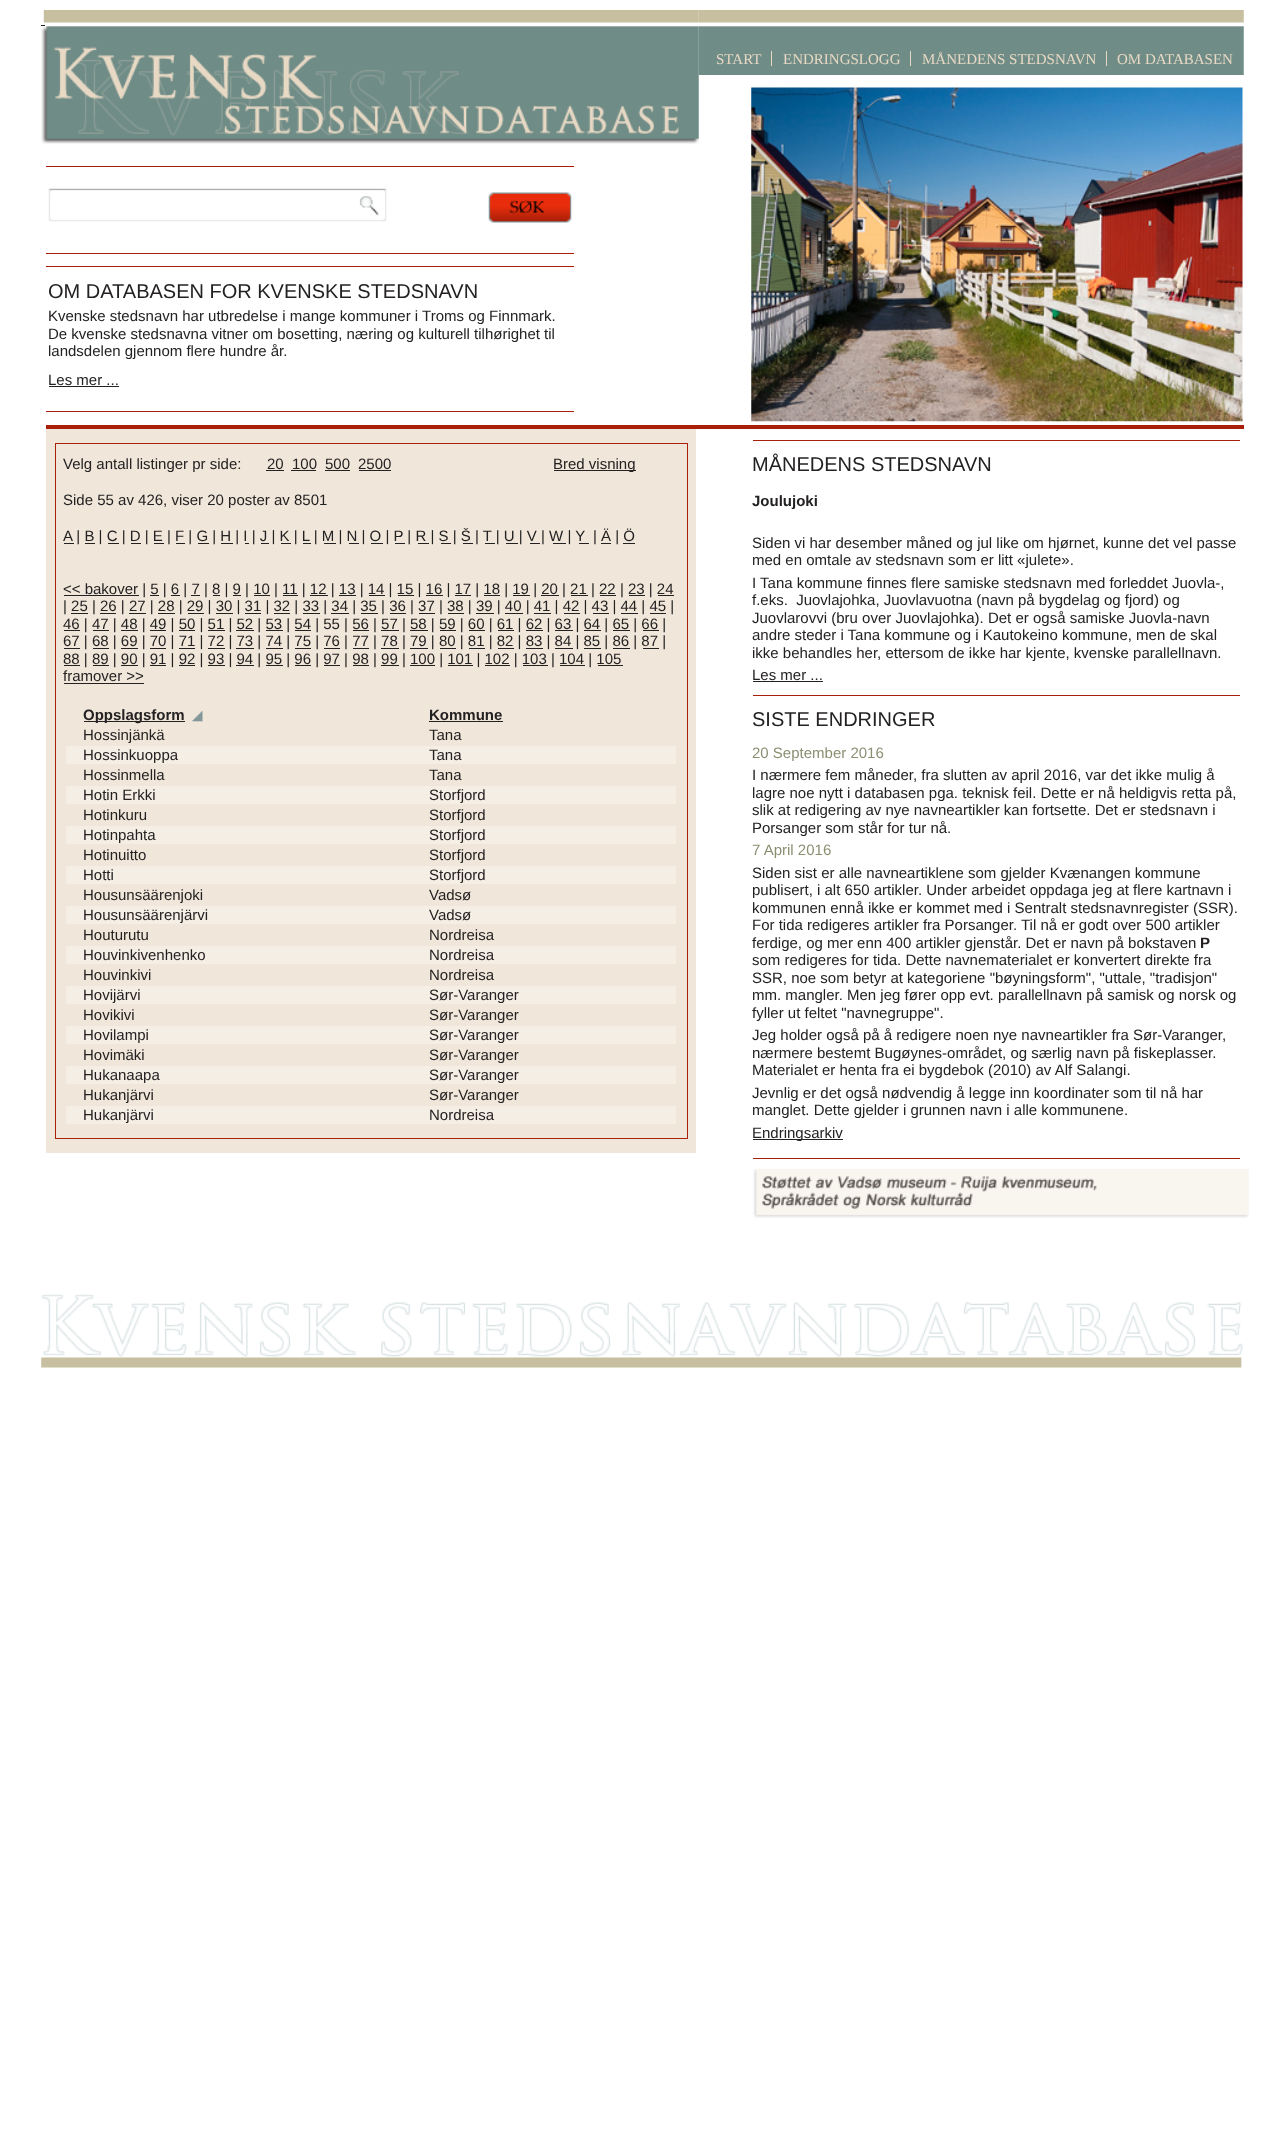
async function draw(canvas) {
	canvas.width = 1283;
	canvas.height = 2154;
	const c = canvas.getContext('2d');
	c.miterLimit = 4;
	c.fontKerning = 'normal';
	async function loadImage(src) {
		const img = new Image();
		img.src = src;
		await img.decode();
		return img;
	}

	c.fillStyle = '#fff';
	c.fillRect(0, 0, 1283, 2154);
	c.drawImage(await loadImage('img3.png'), 41, 10, 658, 134);
	c.drawImage(await loadImage('img1.png'), 698, 10, 546, 65);
	c.font = '15px Liberation Serif';
	c.fillStyle = '#e8d9c4';
	c.fillText('START', 716, 64);
	c.fillRect(771, 51, 1, 15);
	c.fillText('ENDRINGSLOGG', 783, 64);
	c.fillRect(910, 51, 1, 15);
	c.fillText('MÅNEDENS STEDSNAVN', 922, 64);
	c.fillRect(1106, 51, 1, 15);
	c.fillText('OM DATABASEN', 1117, 64);
	c.drawImage(await loadImage('img2.png'), 751, 87, 492, 335);
	for (const [x, y, w, h, color] of [
		[41, 25, 4, 1, '#242122'],
		[46, 166, 528, 1, '#a82009'],
		[46, 253, 528, 1, '#a82009'],
	]) {
		c.fillStyle = color;
		c.fillRect(x, y, w, h);
	}
	c.drawImage(await loadImage('img4.png'), 48, 188, 339, 34);
	c.drawImage(await loadImage('img5.png'), 488, 192, 84, 31);
	c.fillRect(46, 266, 528, 1);
	c.fillRect(46, 411, 528, 1);
	c.font = '20px Liberation Sans';
	c.fillStyle = '#242122';
	c.fillText('OM DATABASEN FOR KVENSKE STEDSNAVN', 48, 298);
	c.font = '15px Liberation Sans';
	for (const [text, x, y] of [
		['Kvenske stedsnavn har utbredelse i mange kommuner i Troms og Finnmark.', 48, 321],
		['De kvenske stedsnavna vitner om bosetting, næring og kulturell tilhørighet til', 48, 339],
		['landsdelen gjennom flere hundre år.', 48, 356],
		['Les mer ...', 48, 385],
	]) {
		c.fillText(text, x, y);
	}
	for (const [x, y, w, h, color] of [
		[49, 386, 70, 1, '#242122'],
		[46, 425, 1198, 4, '#a82009'],
		[46, 429, 650, 724, '#f0e7da'],
	]) {
		c.fillStyle = color;
		c.fillRect(x, y, w, h);
	}
	c.strokeStyle = '#a82009';
	c.strokeRect(55.5, 443.5, 632, 695);
	c.fillStyle = '#242122';
	c.fillText('Velg antall listinger pr side:', 63, 469);
	c.fillText('20', 267, 469);
	c.fillRect(266, 470, 18, 1);
	c.fillText('100', 292, 469);
	c.fillRect(291, 470, 25, 1);
	c.fillText('500', 325, 469);
	c.fillRect(325, 470, 25, 1);
	c.fillText('2500', 358, 469);
	c.fillRect(359, 470, 32, 1);
	c.fillRect(554, 470, 82, 1);
	c.fillText('Bred visning', 553, 469);
	c.fillText('Side 55 av 426, viser 20 poster av 8501', 63, 505);
	c.fillRect(64, 543, 10, 1);
	c.fillText('A | B | C | D | E | F | G | H | I | J | K | L | M | N | O | P | R | S | Š | T | U | V | W | Y', 63, 541);
	c.fillText('| Ä | Ö', 593, 541);
	for (const [x, y, w, h, color] of [
		[85, 543, 10, 1, '#242122'],
		[108, 543, 11, 1, '#242122'],
		[131, 543, 10, 1, '#242122'],
		[154, 543, 10, 1, '#242122'],
		[176, 543, 9, 1, '#242122'],
		[198, 543, 11, 1, '#242122'],
		[221, 543, 12, 1, '#242122'],
		[245, 543, 4, 1, '#242122'],
		[261, 543, 8, 1, '#242122'],
		[281, 543, 10, 1, '#242122'],
		[303, 543, 8, 1, '#242122'],
		[324, 543, 12, 1, '#242122'],
		[349, 543, 10, 1, '#242122'],
		[371, 543, 12, 1, '#242122'],
		[395, 543, 10, 1, '#242122'],
		[418, 543, 11, 1, '#242122'],
		[441, 543, 10, 1, '#242122'],
		[463, 543, 10, 1, '#242122'],
		[485, 543, 10, 1, '#242122'],
		[506, 543, 12, 1, '#242122'],
		[530, 543, 10, 1, '#242122'],
		[553, 543, 13, 1, '#242122'],
		[579, 543, 10, 1, '#242122'],
		[601, 543, 10, 1, '#242122'],
		[623, 543, 12, 1, '#242122'],
		[64, 595, 75, 1, '#242122'],
	]) {
		c.fillStyle = color;
		c.fillRect(x, y, w, h);
	}
	c.fillText('<< bakover | 5 | 6 | 7 | 8 | 9 | 10 | 11 | 12 | 13 | 14 | 15 | 16 | 17 | 18 | 19 | 20 | 21 | 22 | 23 | 24', 63, 594);
	for (const [x, y, w, h, color] of [
		[150, 595, 9, 1, '#242122'],
		[171, 595, 9, 1, '#242122'],
		[191, 595, 9, 1, '#242122'],
		[213, 595, 7, 1, '#242122'],
		[233, 595, 8, 1, '#242122'],
		[254, 595, 16, 1, '#242122'],
		[283, 595, 15, 1, '#242122'],
		[310, 595, 18, 1, '#242122'],
		[339, 595, 17, 1, '#242122'],
		[369, 595, 16, 1, '#242122'],
		[398, 595, 16, 1, '#242122'],
		[426, 595, 17, 1, '#242122'],
		[455, 595, 16, 1, '#242122'],
		[484, 595, 16, 1, '#242122'],
		[513, 595, 17, 1, '#242122'],
		[541, 595, 18, 1, '#242122'],
		[571, 595, 17, 1, '#242122'],
		[600, 595, 16, 1, '#242122'],
		[629, 595, 16, 1, '#242122'],
		[658, 595, 16, 1, '#242122'],
	]) {
		c.fillStyle = color;
		c.fillRect(x, y, w, h);
	}
	c.fillText('| 25 | 26 | 27 | 28 | 29 | 30 | 31 | 32 | 33 | 34 | 35 | 36 | 37 | 38 | 39 | 40 | 41 | 42 | 43 | 44 | 45 |', 63, 611);
	for (const [x, y, w, h, color] of [
		[71, 613, 17, 1, '#242122'],
		[100, 613, 16, 1, '#242122'],
		[129, 613, 17, 1, '#242122'],
		[158, 613, 17, 1, '#242122'],
		[188, 613, 16, 1, '#242122'],
		[216, 613, 17, 1, '#242122'],
		[245, 613, 16, 1, '#242122'],
		[274, 613, 16, 1, '#242122'],
		[303, 613, 17, 1, '#242122'],
		[331, 613, 18, 1, '#242122'],
		[361, 613, 17, 1, '#242122'],
		[390, 613, 16, 1, '#242122'],
		[419, 613, 16, 1, '#242122'],
		[448, 613, 16, 1, '#242122'],
		[476, 613, 18, 1, '#242122'],
		[505, 613, 18, 1, '#242122'],
		[534, 613, 17, 1, '#242122'],
		[564, 613, 16, 1, '#242122'],
		[593, 613, 16, 1, '#242122'],
		[621, 613, 17, 1, '#242122'],
		[650, 613, 16, 1, '#242122'],
		[64, 630, 16, 1, '#242122'],
	]) {
		c.fillStyle = color;
		c.fillRect(x, y, w, h);
	}
	c.fillText('46 | 47 | 48 | 49 | 50 | 51 | 52 | 53 | 54 | 55 | 56 | 57 | 58 | 59 | 60 | 61 | 62 | 63 | 64 | 65 | 66 |', 63, 629);
	for (const [x, y, w, h, color] of [
		[93, 630, 16, 1, '#242122'],
		[121, 630, 17, 1, '#242122'],
		[150, 630, 16, 1, '#242122'],
		[179, 630, 16, 1, '#242122'],
		[208, 630, 17, 1, '#242122'],
		[236, 630, 18, 1, '#242122'],
		[266, 630, 17, 1, '#242122'],
		[295, 630, 16, 1, '#242122'],
		[353, 630, 16, 1, '#242122'],
		[381, 630, 18, 1, '#242122'],
		[410, 630, 18, 1, '#242122'],
		[440, 630, 16, 1, '#242122'],
		[469, 630, 16, 1, '#242122'],
		[498, 630, 16, 1, '#242122'],
		[526, 630, 17, 1, '#242122'],
		[555, 630, 18, 1, '#242122'],
		[584, 630, 17, 1, '#242122'],
		[613, 630, 17, 1, '#242122'],
		[643, 630, 16, 1, '#242122'],
		[64, 648, 16, 1, '#242122'],
	]) {
		c.fillStyle = color;
		c.fillRect(x, y, w, h);
	}
	c.fillText('67 | 68 | 69 | 70 | 71 | 72 | 73 | 74 | 75 | 76 | 77 | 78 | 79 | 80 | 81 | 82 | 83 | 84 | 85 | 86 | 87 |', 63, 646);
	for (const [x, y, w, h, color] of [
		[93, 648, 16, 1, '#242122'],
		[121, 648, 17, 1, '#242122'],
		[150, 648, 16, 1, '#242122'],
		[179, 648, 16, 1, '#242122'],
		[208, 648, 17, 1, '#242122'],
		[236, 648, 18, 1, '#242122'],
		[266, 648, 17, 1, '#242122'],
		[295, 648, 16, 1, '#242122'],
		[324, 648, 16, 1, '#242122'],
		[353, 648, 16, 1, '#242122'],
		[381, 648, 18, 1, '#242122'],
		[410, 648, 18, 1, '#242122'],
		[440, 648, 16, 1, '#242122'],
		[469, 648, 16, 1, '#242122'],
		[498, 648, 16, 1, '#242122'],
		[526, 648, 17, 1, '#242122'],
		[555, 648, 18, 1, '#242122'],
		[584, 648, 17, 1, '#242122'],
		[613, 648, 17, 1, '#242122'],
		[643, 648, 16, 1, '#242122'],
		[64, 665, 16, 1, '#242122'],
	]) {
		c.fillStyle = color;
		c.fillRect(x, y, w, h);
	}
	c.fillText('88 | 89 | 90 | 91 | 92 | 93 | 94 | 95 | 96 | 97 | 98 | 99 | 100 | 101 | 102 | 103 | 104 | 105', 63, 664);
	for (const [x, y, w, h, color] of [
		[93, 665, 16, 1, '#242122'],
		[121, 665, 17, 1, '#242122'],
		[150, 665, 16, 1, '#242122'],
		[179, 665, 16, 1, '#242122'],
		[208, 665, 17, 1, '#242122'],
		[236, 665, 18, 1, '#242122'],
		[266, 665, 17, 1, '#242122'],
		[295, 665, 16, 1, '#242122'],
		[324, 665, 16, 1, '#242122'],
		[353, 665, 16, 1, '#242122'],
		[381, 665, 18, 1, '#242122'],
		[410, 665, 25, 1, '#242122'],
		[448, 665, 25, 1, '#242122'],
		[485, 665, 25, 1, '#242122'],
		[523, 665, 25, 1, '#242122'],
		[560, 665, 25, 1, '#242122'],
		[598, 665, 25, 1, '#242122'],
	]) {
		c.fillStyle = color;
		c.fillRect(x, y, w, h);
	}
	c.fillText('framover >>', 63, 681);
	c.fillRect(64, 683, 80, 1);
	c.fillRect(84, 721, 101, 1);
	c.font = 'bold 15px Liberation Sans';
	c.fillText('Oppslagsform', 83, 720);
	c.drawImage(await loadImage('img6.png'), 192, 711, 11, 11);
	c.fillText('Kommune', 429, 720);
	c.fillRect(429, 721, 74, 1);
	c.font = '15px Liberation Sans';
	c.fillText('Hossinjänkä', 83, 740);
	c.fillText('Tana', 429, 740);
	c.fillStyle = '#f4eee5';
	c.fillRect(66, 746, 610, 18);
	c.fillStyle = '#242122';
	for (const [text, x, y] of [
		['Hossinkuoppa', 83, 760],
		['Tana', 429, 760],
		['Hossinmella', 83, 780],
		['Tana', 429, 780],
	]) {
		c.fillText(text, x, y);
	}
	c.fillStyle = '#f4eee5';
	c.fillRect(66, 786, 610, 18);
	c.fillStyle = '#242122';
	for (const [text, x, y] of [
		['Hotin Erkki', 83, 800],
		['Storfjord', 429, 800],
		['Hotinkuru', 83, 820],
		['Storfjord', 429, 820],
	]) {
		c.fillText(text, x, y);
	}
	c.fillStyle = '#f4eee5';
	c.fillRect(66, 826, 610, 18);
	c.fillStyle = '#242122';
	for (const [text, x, y] of [
		['Hotinpahta', 83, 840],
		['Storfjord', 429, 840],
		['Hotinuitto', 83, 860],
		['Storfjord', 429, 860],
	]) {
		c.fillText(text, x, y);
	}
	c.fillStyle = '#f4eee5';
	c.fillRect(66, 866, 610, 18);
	c.fillStyle = '#242122';
	for (const [text, x, y] of [
		['Hotti', 83, 880],
		['Storfjord', 429, 880],
		['Housunsäärenjoki', 83, 900],
		['Vadsø', 429, 900],
	]) {
		c.fillText(text, x, y);
	}
	c.fillStyle = '#f4eee5';
	c.fillRect(66, 906, 610, 18);
	c.fillStyle = '#242122';
	for (const [text, x, y] of [
		['Housunsäärenjärvi', 83, 920],
		['Vadsø', 429, 920],
		['Houturutu', 83, 940],
		['Nordreisa', 429, 940],
	]) {
		c.fillText(text, x, y);
	}
	c.fillStyle = '#f4eee5';
	c.fillRect(66, 946, 610, 18);
	c.fillStyle = '#242122';
	for (const [text, x, y] of [
		['Houvinkivenhenko', 83, 960],
		['Nordreisa', 429, 960],
		['Houvinkivi', 83, 980],
		['Nordreisa', 429, 980],
	]) {
		c.fillText(text, x, y);
	}
	c.fillStyle = '#f4eee5';
	c.fillRect(66, 986, 610, 18);
	c.fillStyle = '#242122';
	for (const [text, x, y] of [
		['Hovijärvi', 83, 1000],
		['Sør-Varanger', 429, 1000],
		['Hovikivi', 83, 1020],
		['Sør-Varanger', 429, 1020],
	]) {
		c.fillText(text, x, y);
	}
	c.fillStyle = '#f4eee5';
	c.fillRect(66, 1026, 610, 18);
	c.fillStyle = '#242122';
	for (const [text, x, y] of [
		['Hovilampi', 83, 1040],
		['Sør-Varanger', 429, 1040],
		['Hovimäki', 83, 1060],
		['Sør-Varanger', 429, 1060],
	]) {
		c.fillText(text, x, y);
	}
	c.fillStyle = '#f4eee5';
	c.fillRect(66, 1066, 610, 18);
	c.fillStyle = '#242122';
	for (const [text, x, y] of [
		['Hukanaapa', 83, 1080],
		['Sør-Varanger', 429, 1080],
		['Hukanjärvi', 83, 1100],
		['Sør-Varanger', 429, 1100],
	]) {
		c.fillText(text, x, y);
	}
	c.fillStyle = '#f4eee5';
	c.fillRect(66, 1106, 610, 18);
	c.fillStyle = '#242122';
	c.fillText('Hukanjärvi', 83, 1120);
	c.fillText('Nordreisa', 429, 1120);
	c.fillStyle = '#a82009';
	c.fillRect(753, 440, 487, 1);
	c.font = '20px Liberation Sans';
	c.fillStyle = '#242122';
	c.fillText('MÅNEDENS STEDSNAVN', 752, 471);
	c.font = 'bold 15px Liberation Sans';
	c.fillText('Joulujoki', 752, 506);
	c.font = '15px Liberation Sans';
	for (const [text, x, y] of [
		['Siden vi har desember måned og jul like om hjørnet, kunne det vel passe', 752, 548],
		['med en omtale av stedsnavn som er litt «julete».', 752, 565],
		['I Tana kommune finnes flere samiske stedsnavn med forleddet Juovla-,', 752, 588],
		['f.eks.  Juovlajohka, Juovlavuotna (navn på bygdelag og fjord) og', 752, 605],
		['Juovlarovvi (bru over Juovlajohka). Det er også samiske Juovla-navn', 752, 623],
		['andre steder i Tana kommune og i Kautokeino kommune, men de skal', 752, 640],
		['ikke behandles her, ettersom de ikke har kjente, kvenske parallellnavn.', 752, 658],
		['Les mer ...', 752, 680],
	]) {
		c.fillText(text, x, y);
	}
	c.fillRect(753, 681, 70, 1);
	c.fillStyle = '#a82009';
	c.fillRect(753, 695, 487, 1);
	c.font = '20px Liberation Sans';
	c.fillStyle = '#242122';
	c.fillText('SISTE ENDRINGER', 752, 726);
	c.font = '15px Liberation Sans';
	c.fillStyle = '#8b8f72';
	c.fillText('20 September 2016', 752, 758);
	c.fillStyle = '#242122';
	for (const [text, x, y] of [
		['I nærmere fem måneder, fra slutten av april 2016, var det ikke mulig å', 752, 780],
		['lagre noe nytt i databasen pga. teknisk feil. Dette er nå heldigvis retta på,', 752, 798],
		['slik at redigering av nye navneartikler kan fortsette. Det er stedsnavn i', 752, 815],
		['Porsanger som står for tur nå.', 752, 833],
	]) {
		c.fillText(text, x, y);
	}
	c.fillStyle = '#8b8f72';
	c.fillText('7 April 2016', 752, 855);
	c.fillStyle = '#242122';
	for (const [text, x, y] of [
		['Siden sist er alle navneartiklene som gjelder Kvænangen kommune', 752, 878],
		['publisert, i alt 650 artikler. Under arbeidet oppdaga jeg at flere kartnavn i', 752, 895],
		['kommunen ennå ikke er kommet med i Sentralt stedsnavnregister (SSR).', 752, 913],
		['For tida redigeres artikler fra Porsanger. Til nå er godt over 500 artikler', 752, 930],
		['ferdige, og mer enn 400 artikler gjenstår. Det er navn på bokstaven', 752, 948],
	]) {
		c.fillText(text, x, y);
	}
	c.font = 'bold 15px Liberation Sans';
	c.fillText('P', 1200, 948);
	c.font = '15px Liberation Sans';
	for (const [text, x, y] of [
		['som redigeres for tida. Dette navnematerialet er konvertert direkte fra', 752, 965],
		['SSR, noe som betyr at kategoriene "bøyningsform", "uttale, "tradisjon"', 752, 983],
		['mm. mangler. Men jeg fører opp evt. parallellnavn på samisk og norsk og', 752, 1000],
		['fyller ut feltet "navnegruppe".', 752, 1018],
		['Jeg holder også på å redigere noen nye navneartikler fra Sør-Varanger,', 752, 1040],
		['nærmere bestemt Bugøynes-området, og særlig navn på fiskeplasser.', 752, 1058],
		['Materialet er henta fra ei bygdebok (2010) av Alf Salangi.', 752, 1075],
		['Jevnlig er det også nødvendig å legge inn koordinater som til nå har', 752, 1098],
		['manglet. Dette gjelder i grunnen navn i alle kommunene.', 752, 1115],
	]) {
		c.fillText(text, x, y);
	}
	c.fillRect(753, 1139, 90, 1);
	c.fillText('Endringsarkiv', 752, 1138);
	c.fillStyle = '#a82009';
	c.fillRect(753, 1158, 487, 1);
	c.drawImage(await loadImage('img7.png'), 753, 1168, 496, 50);
	c.drawImage(await loadImage('img8.png'), 41, 1294, 1202, 74);
}

draw(document.querySelector('canvas'));
